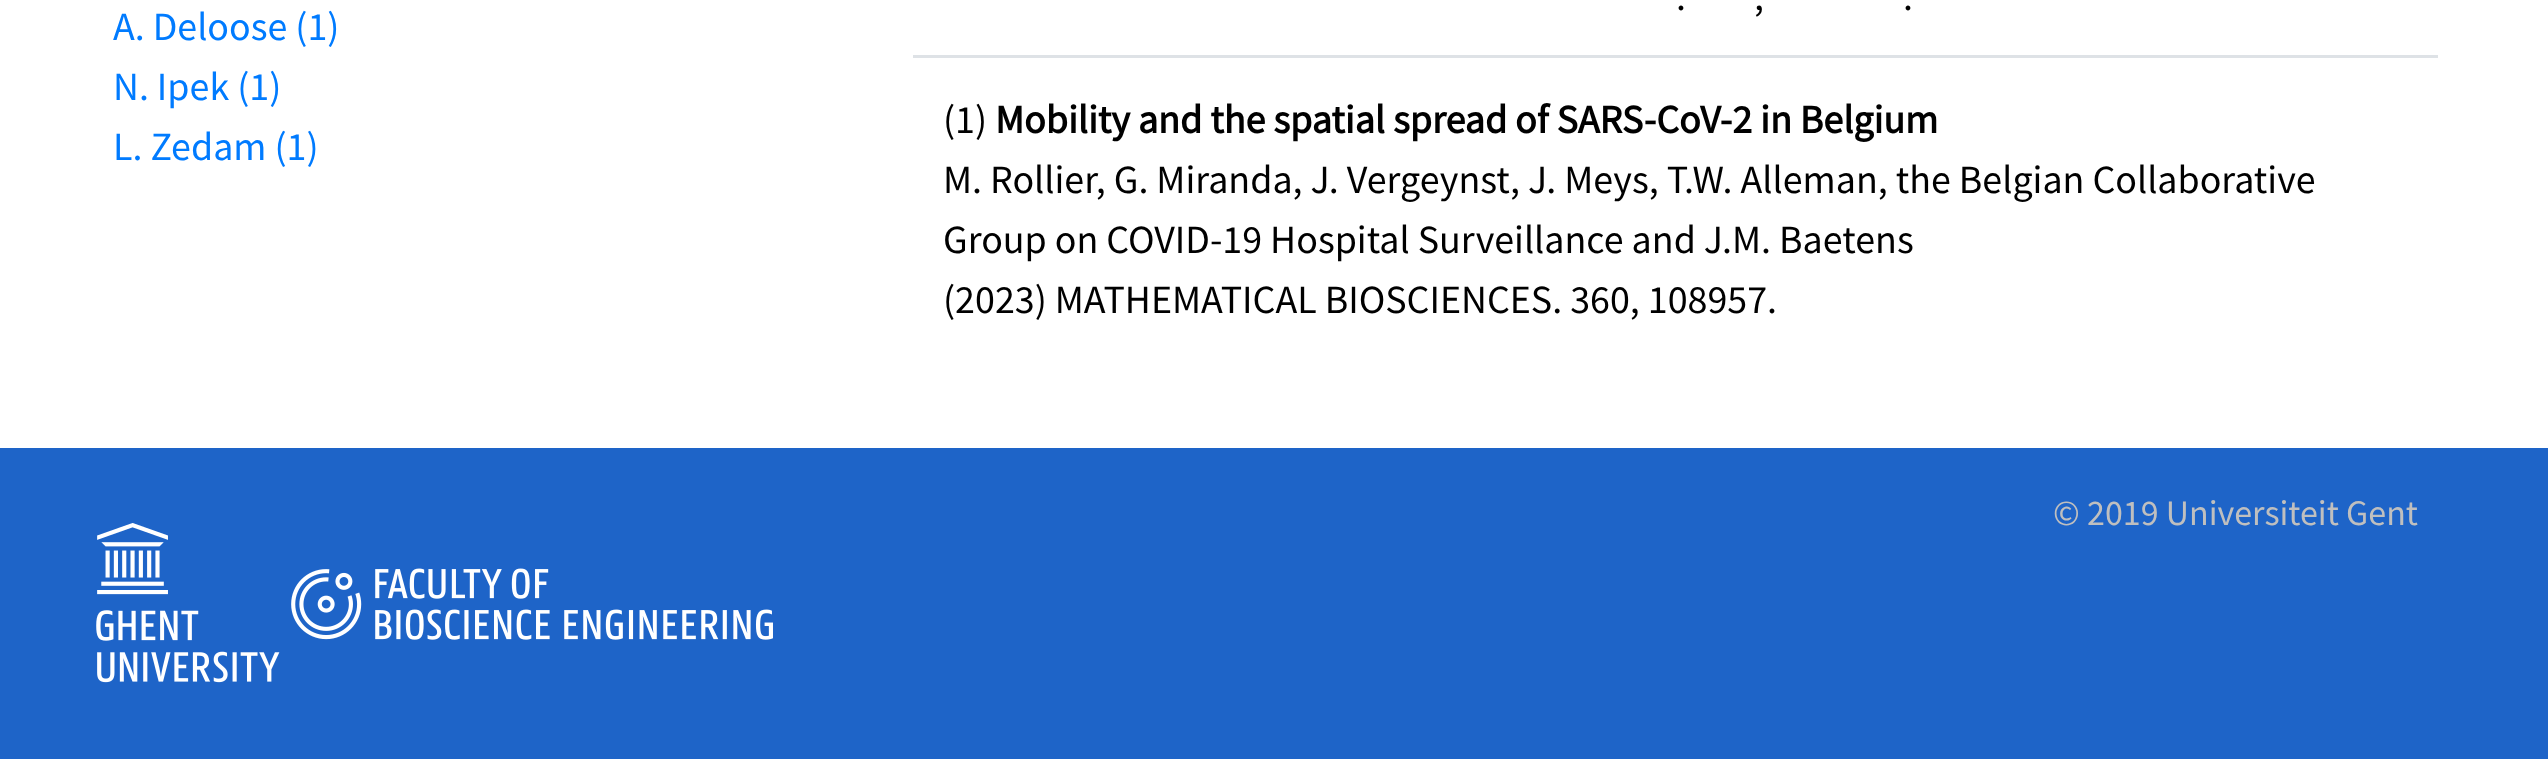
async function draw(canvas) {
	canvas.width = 2548;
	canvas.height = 759;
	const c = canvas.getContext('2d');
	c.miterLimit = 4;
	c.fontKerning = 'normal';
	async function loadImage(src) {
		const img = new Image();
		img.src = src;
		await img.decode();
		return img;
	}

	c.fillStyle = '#fff';
	c.fillRect(0, 0, 2548, 759);
	c.font = '40px Source Sans Pro';
	c.fillStyle = '#007bff';
	for (const [text, x, y] of [
		['A. Deloose (1)', 113, 40],
		['N. Ipek (1)', 113, 100],
		['L. Zedam (1)', 113, 160],
	]) {
		c.fillText(text, x, y);
	}
	c.fillStyle = '#000';
	for (const [text, x, y] of [
		['.', 1676, 10],
		[',', 1754, 10],
		['.', 1903, 10],
	]) {
		c.fillText(text, x, y);
	}
	c.fillStyle = '#dee2e6';
	c.fillRect(913, 55, 1525, 3);
	c.fillStyle = '#000';
	c.fillText('(1)', 943, 133);
	c.font = 'bold 40px Source Sans Pro';
	c.fillText('Mobility and the spatial spread of SARS-CoV-2 in Belgium', 995, 133);
	c.font = '40px Source Sans Pro';
	for (const [text, x, y] of [
		['M. Rollier, G. Miranda, J. Vergeynst, J. Meys, T.W. Alleman, the Belgian Collaborative', 943, 193],
		['Group on COVID-19 Hospital Surveillance and J.M. Baetens', 943, 253],
		['(2023) MATHEMATICAL BIOSCIENCES. 360, 108957.', 943, 313],
	]) {
		c.fillText(text, x, y);
	}
	c.fillStyle = '#1e64c8';
	c.fillRect(0, 448, 2548, 311);
	c.font = '36px Source Sans Pro';
	c.fillStyle = '#bfbfbf';
	c.fillText('© 2019 Universiteit Gent', 2053, 525);
	c.drawImage(await loadImage('img1.png'), 96, 523, 184, 160);
	c.drawImage(await loadImage('img2.png'), 291, 568, 482, 72);
}

draw(document.querySelector('canvas'));
